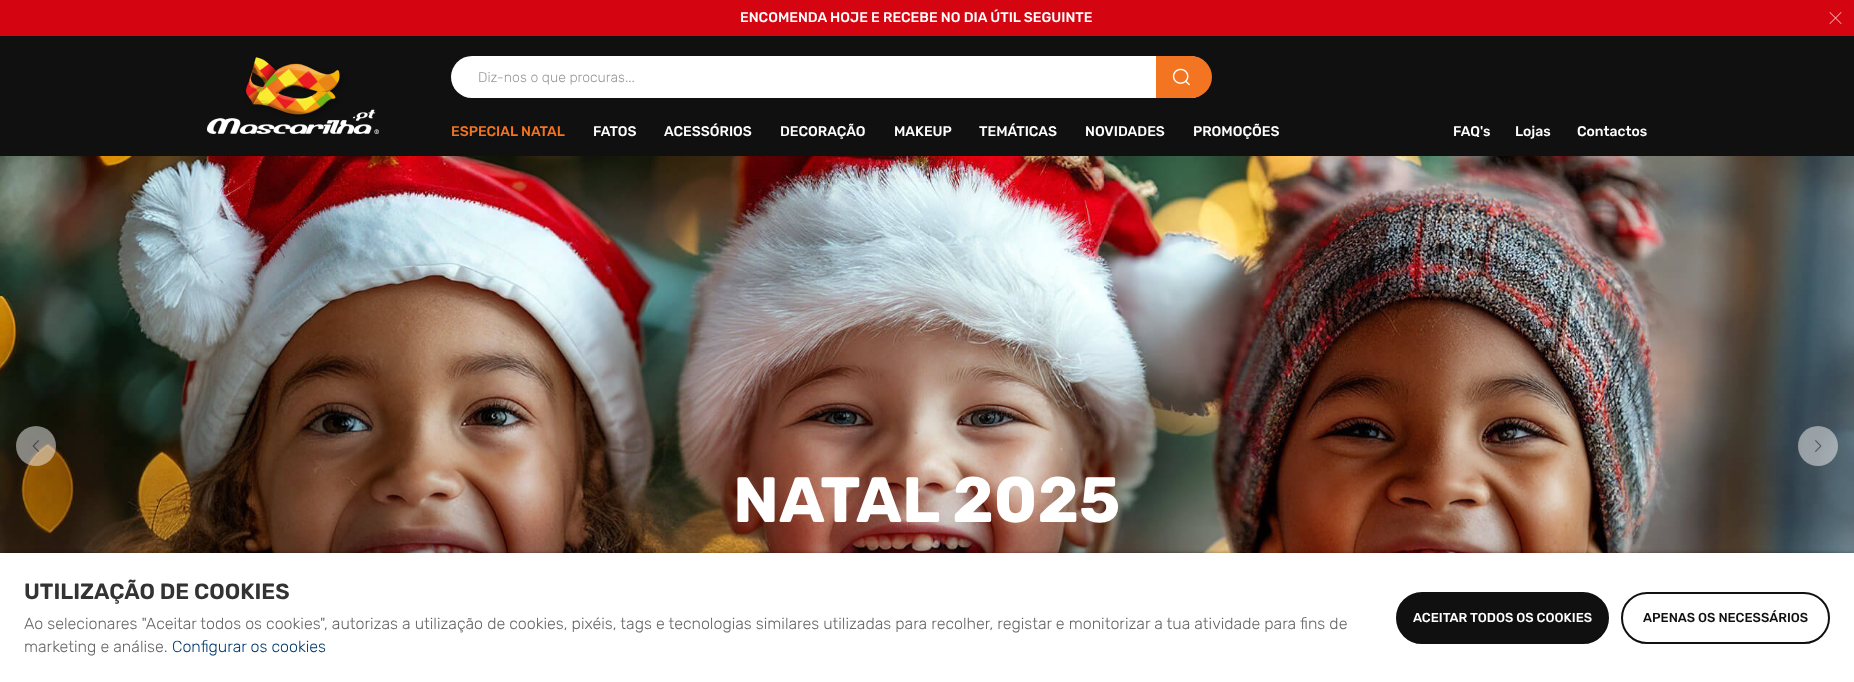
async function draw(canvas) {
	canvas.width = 1854;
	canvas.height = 682;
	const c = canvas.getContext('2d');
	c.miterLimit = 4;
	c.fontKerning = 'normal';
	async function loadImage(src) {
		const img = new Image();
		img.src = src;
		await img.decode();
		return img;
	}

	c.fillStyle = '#fff';
	c.fillRect(0, 0, 1854, 682);
	c.fillStyle = '#d40411';
	c.fillRect(0, 0, 1854, 36);
	c.font = '300 14px "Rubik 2"';
	c.fillStyle = '#fff';
	c.fillText('ENCOMENDA HOJE E RECEBE NO DIA ÚTIL SEGUINTE', 740, 22);
	c.fillStyle = '#f6cdcf';
	c.beginPath();
	c.moveTo(1841, 12);
	c.lineTo(1841.5, 12.5);
	c.lineTo(1830, 24);
	c.lineTo(1829.5, 23.5);
	c.closePath();
	c.fill();
	c.beginPath();
	c.moveTo(1829.5, 12.5);
	c.lineTo(1830, 12);
	c.lineTo(1841.5, 23.5);
	c.lineTo(1841, 24);
	c.closePath();
	c.fill();
	c.fillStyle = '#101010';
	c.fillRect(0, 36, 1854, 120);
	c.drawImage(await loadImage('img1.png'), 207, 57, 172, 77);
	c.fillStyle = '#fff';
	c.beginPath();
	c.roundRect(451, 56, 760, 42, 21);
	c.fill();
	c.font = '300 14px "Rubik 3"';
	c.fillStyle = '#999';
	c.fillText('Diz-nos o que procuras...', 478, 82);
	c.fillStyle = '#f47521';
	c.beginPath();
	c.roundRect(1156, 56, 56, 42, [0, 21, 21, 0]);
	c.fill();
	c.drawImage(await loadImage('img2.png'), 1172, 68, 18, 18);
	c.font = '300 14px "Rubik 2"';
	c.fillText('ESPECIAL NATAL', 451, 136);
	c.fillStyle = '#fff';
	for (const [text, x, y] of [
		['FATOS', 593, 136],
		['ACESSÓRIOS', 664, 136],
		['DECORAÇÃO', 780, 136],
		['MAKEUP', 894, 136],
		['TEMÁTICAS', 979, 136],
		['NOVIDADES', 1085, 136],
		['PROMOÇÕES', 1193, 136],
		['FAQ\'s', 1453, 136],
		['Lojas', 1515, 136],
		['Contactos', 1577, 136],
	]) {
		c.fillText(text, x, y);
	}
	c.drawImage(await loadImage('img5.png'), 0, 156, 1854, 397);
	c.fillStyle = '#f5f5f580';
	c.beginPath();
	c.arc(36, 446, 20, 0, 2 * Math.PI);
	c.fill();
	c.drawImage(await loadImage('img3.png'), 32, 440, 7, 12);
	c.beginPath();
	c.arc(1818, 446, 20, 0, 2 * Math.PI);
	c.fill();
	c.drawImage(await loadImage('img4.png'), 1815, 440, 7, 12);
	c.font = '300 64px Rubik';
	c.fillStyle = '#fff';
	c.fillText('NATAL 2025', 733, 522);
	c.fillStyle = '#00000080';
	c.filter = 'blur(2.5px)';
	c.beginPath();
	c.rect(1, 554, 1852, 127);
	c.fill();
	c.filter = 'none';
	c.fillStyle = '#fff';
	c.fillRect(0, 553, 1854, 129);
	c.font = '600 22px Rubik';
	c.fillStyle = '#333';
	c.fillText('UTILIZAÇÃO DE COOKIES', 24, 599);
	c.font = '300 16px "Rubik 3"';
	c.fillStyle = '#666';
	c.fillText('Ao selecionares "Aceitar todos os cookies", autorizas a utilização de cookies, pixéis, tags e tecnologias similares utilizadas para recolher, registar e monitorizar a tua atividade para fins de', 24, 629);
	c.fillText('marketing e análise.', 24, 652);
	c.fillStyle = '#003a6f';
	c.fillText('Configurar os cookies', 172, 652);
	c.fillStyle = '#101010';
	c.beginPath();
	c.roundRect(1397, 593, 211, 50, 25);
	c.fill();
	c.strokeStyle = '#101010';
	c.lineWidth = 2;
	c.stroke();
	c.font = '300 13px "Rubik 2"';
	c.fillStyle = '#fff';
	c.fillText('ACEITAR TODOS OS COOKIES', 1413, 622);
	c.beginPath();
	c.roundRect(1622, 593, 207, 50, 25);
	c.stroke();
	c.fillStyle = '#101010';
	c.fillText('APENAS OS NECESSÁRIOS', 1643, 622);
}

draw(document.querySelector('canvas'));
